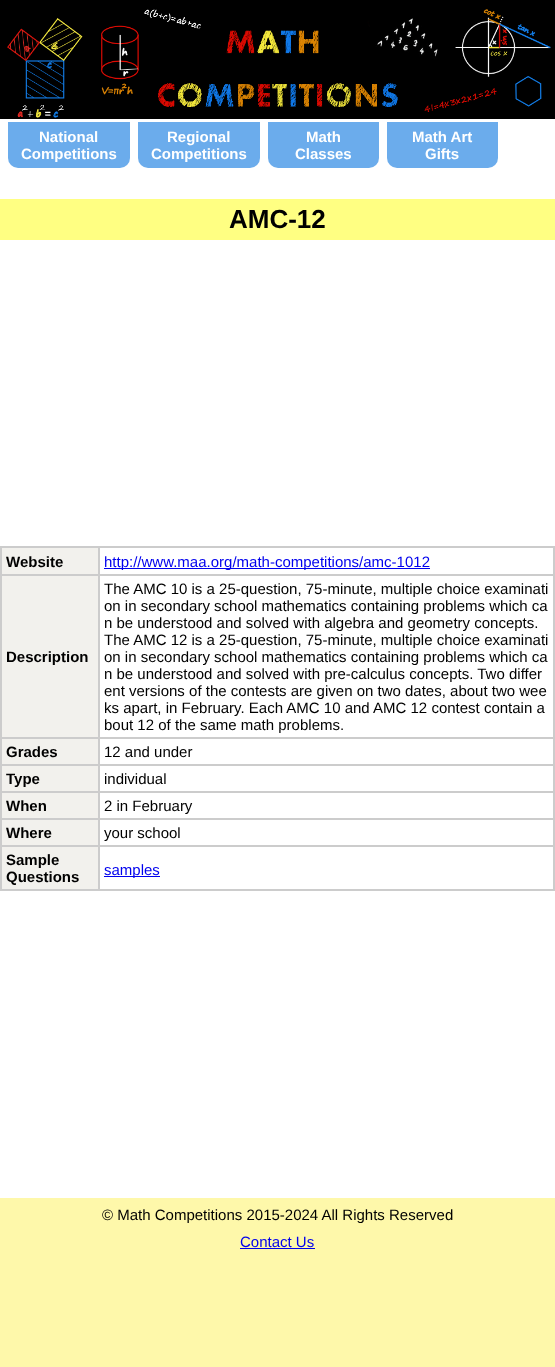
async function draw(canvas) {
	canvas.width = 555;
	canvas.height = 1367;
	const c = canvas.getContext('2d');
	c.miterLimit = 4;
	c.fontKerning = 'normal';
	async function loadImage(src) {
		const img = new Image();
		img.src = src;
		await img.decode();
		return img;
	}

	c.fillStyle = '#fef8aa';
	c.fillRect(0, 0, 555, 1367);
	c.fillStyle = '#fff';
	c.fillRect(0, 119, 555, 1079);
	c.drawImage(await loadImage('img1.png'), 0, 0, 555, 119);
	c.fillStyle = '#6bacec';
	c.beginPath();
	c.roundRect(8, 122, 122, 46, [0, 0, 10, 10]);
	c.fill();
	c.font = 'bold 15px Liberation Sans';
	c.fillStyle = '#fff';
	c.fillText('National', 39, 142);
	c.fillText('Competitions', 21, 159);
	c.fillStyle = '#6bacec';
	c.beginPath();
	c.roundRect(138, 122, 122, 46, [0, 0, 10, 10]);
	c.fill();
	c.fillStyle = '#fff';
	c.fillText('Regional', 167, 142);
	c.fillText('Competitions', 151, 159);
	c.fillStyle = '#6bacec';
	c.beginPath();
	c.roundRect(268, 122, 111, 46, [0, 0, 10, 10]);
	c.fill();
	c.fillStyle = '#fff';
	c.fillText('Math', 306, 142);
	c.fillText('Classes', 295, 159);
	c.fillStyle = '#6bacec';
	c.beginPath();
	c.roundRect(387, 122, 111, 46, [0, 0, 10, 10]);
	c.fill();
	c.fillStyle = '#fff';
	c.fillText('Math Art', 412, 142);
	c.fillText('Gifts', 425, 159);
	c.fillStyle = '#ffff82';
	c.fillRect(0, 199, 555, 41);
	c.font = 'bold 26px Liberation Sans';
	c.fillStyle = '#000';
	c.fillText('AMC-12', 229, 228);
	for (const [x, y, w, h, color] of [
		[2, 548, 96, 26, '#f2f1ed'],
		[98, 546, 457, 2, '#ccc'],
		[98, 574, 457, 2, '#ccc'],
		[98, 737, 457, 2, '#ccc'],
		[98, 764, 457, 2, '#ccc'],
		[98, 791, 457, 2, '#ccc'],
		[98, 818, 457, 2, '#ccc'],
		[98, 845, 457, 2, '#ccc'],
		[553, 845, 2, 46, '#ccc'],
		[98, 889, 457, 2, '#ccc'],
		[98, 845, 2, 46, '#ccc'],
		[0, 845, 100, 2, '#ccc'],
		[98, 818, 2, 29, '#ccc'],
		[0, 818, 100, 2, '#ccc'],
		[98, 791, 2, 29, '#ccc'],
		[0, 791, 100, 2, '#ccc'],
		[98, 764, 2, 29, '#ccc'],
		[0, 764, 100, 2, '#ccc'],
		[98, 737, 2, 29, '#ccc'],
		[0, 737, 100, 2, '#ccc'],
		[98, 574, 2, 165, '#ccc'],
		[0, 574, 100, 2, '#ccc'],
		[98, 546, 2, 30, '#ccc'],
		[0, 546, 100, 2, '#ccc'],
		[0, 889, 100, 2, '#ccc'],
		[0, 845, 2, 46, '#ccc'],
		[0, 818, 2, 29, '#ccc'],
		[0, 791, 2, 29, '#ccc'],
		[0, 764, 2, 29, '#ccc'],
		[0, 737, 2, 29, '#ccc'],
		[0, 574, 2, 165, '#ccc'],
		[0, 546, 2, 30, '#ccc'],
	]) {
		c.fillStyle = color;
		c.fillRect(x, y, w, h);
	}
	c.font = 'bold 15px Liberation Sans';
	c.fillStyle = '#000';
	c.fillText('Website', 6, 567);
	for (const [x, y, w, h, color] of [
		[553, 818, 2, 29, '#ccc'],
		[553, 791, 2, 29, '#ccc'],
		[553, 764, 2, 29, '#ccc'],
		[553, 737, 2, 29, '#ccc'],
		[553, 574, 2, 165, '#ccc'],
		[553, 546, 2, 30, '#ccc'],
		[104, 568, 326, 1, '#00e'],
	]) {
		c.fillStyle = color;
		c.fillRect(x, y, w, h);
	}
	c.font = '15px Liberation Sans';
	c.fillText('http://www.maa.org/math-competitions/amc-1012', 104, 567);
	c.fillStyle = '#f2f1ed';
	c.fillRect(2, 576, 96, 161);
	c.font = 'bold 15px Liberation Sans';
	c.fillStyle = '#000';
	c.fillText('Description', 6, 662);
	c.font = '15px Liberation Sans';
	for (const [text, x, y] of [
		['The AMC 10 is a 25-question, 75-minute, multiple choice examinati', 104, 594],
		['on in secondary school mathematics containing problems which ca', 104, 611],
		['n be understood and solved with algebra and geometry concepts.', 104, 628],
		['The AMC 12 is a 25-question, 75-minute, multiple choice examinati', 104, 645],
		['on in secondary school mathematics containing problems which ca', 104, 662],
		['n be understood and solved with pre-calculus concepts. Two differ', 104, 679],
		['ent versions of the contests are given on two dates, about two wee', 104, 696],
		['ks apart, in February. Each AMC 10 and AMC 12 contest contain a', 104, 713],
		['bout 12 of the same math problems.', 104, 730],
	]) {
		c.fillText(text, x, y);
	}
	c.fillStyle = '#f2f1ed';
	c.fillRect(2, 739, 96, 25);
	c.font = 'bold 15px Liberation Sans';
	c.fillStyle = '#000';
	c.fillText('Grades', 6, 757);
	c.font = '15px Liberation Sans';
	c.fillText('12 and under', 104, 757);
	c.fillStyle = '#f2f1ed';
	c.fillRect(2, 766, 96, 25);
	c.font = 'bold 15px Liberation Sans';
	c.fillStyle = '#000';
	c.fillText('Type', 6, 784);
	c.font = '15px Liberation Sans';
	c.fillText('individual', 104, 784);
	c.fillStyle = '#f2f1ed';
	c.fillRect(2, 793, 96, 25);
	c.font = 'bold 15px Liberation Sans';
	c.fillStyle = '#000';
	c.fillText('When', 6, 811);
	c.font = '15px Liberation Sans';
	c.fillText('2 in February', 104, 811);
	c.fillStyle = '#f2f1ed';
	c.fillRect(2, 820, 96, 25);
	c.font = 'bold 15px Liberation Sans';
	c.fillStyle = '#000';
	c.fillText('Where', 6, 838);
	c.font = '15px Liberation Sans';
	c.fillText('your school', 104, 838);
	c.fillStyle = '#f2f1ed';
	c.fillRect(2, 847, 96, 42);
	c.font = 'bold 15px Liberation Sans';
	c.fillStyle = '#000';
	c.fillText('Sample', 6, 865);
	c.fillText('Questions', 6, 882);
	c.fillStyle = '#00e';
	c.fillRect(104, 876, 56, 1);
	c.font = '15px Liberation Sans';
	c.fillText('samples', 104, 875);
	c.fillStyle = '#000';
	c.fillText('© Math Competitions 2015-2024 All Rights Reserved', 102, 1220);
	c.fillStyle = '#00e';
	c.fillText('Contact Us', 240, 1247);
	c.fillRect(240, 1248, 75, 1);
}

draw(document.querySelector('canvas'));
